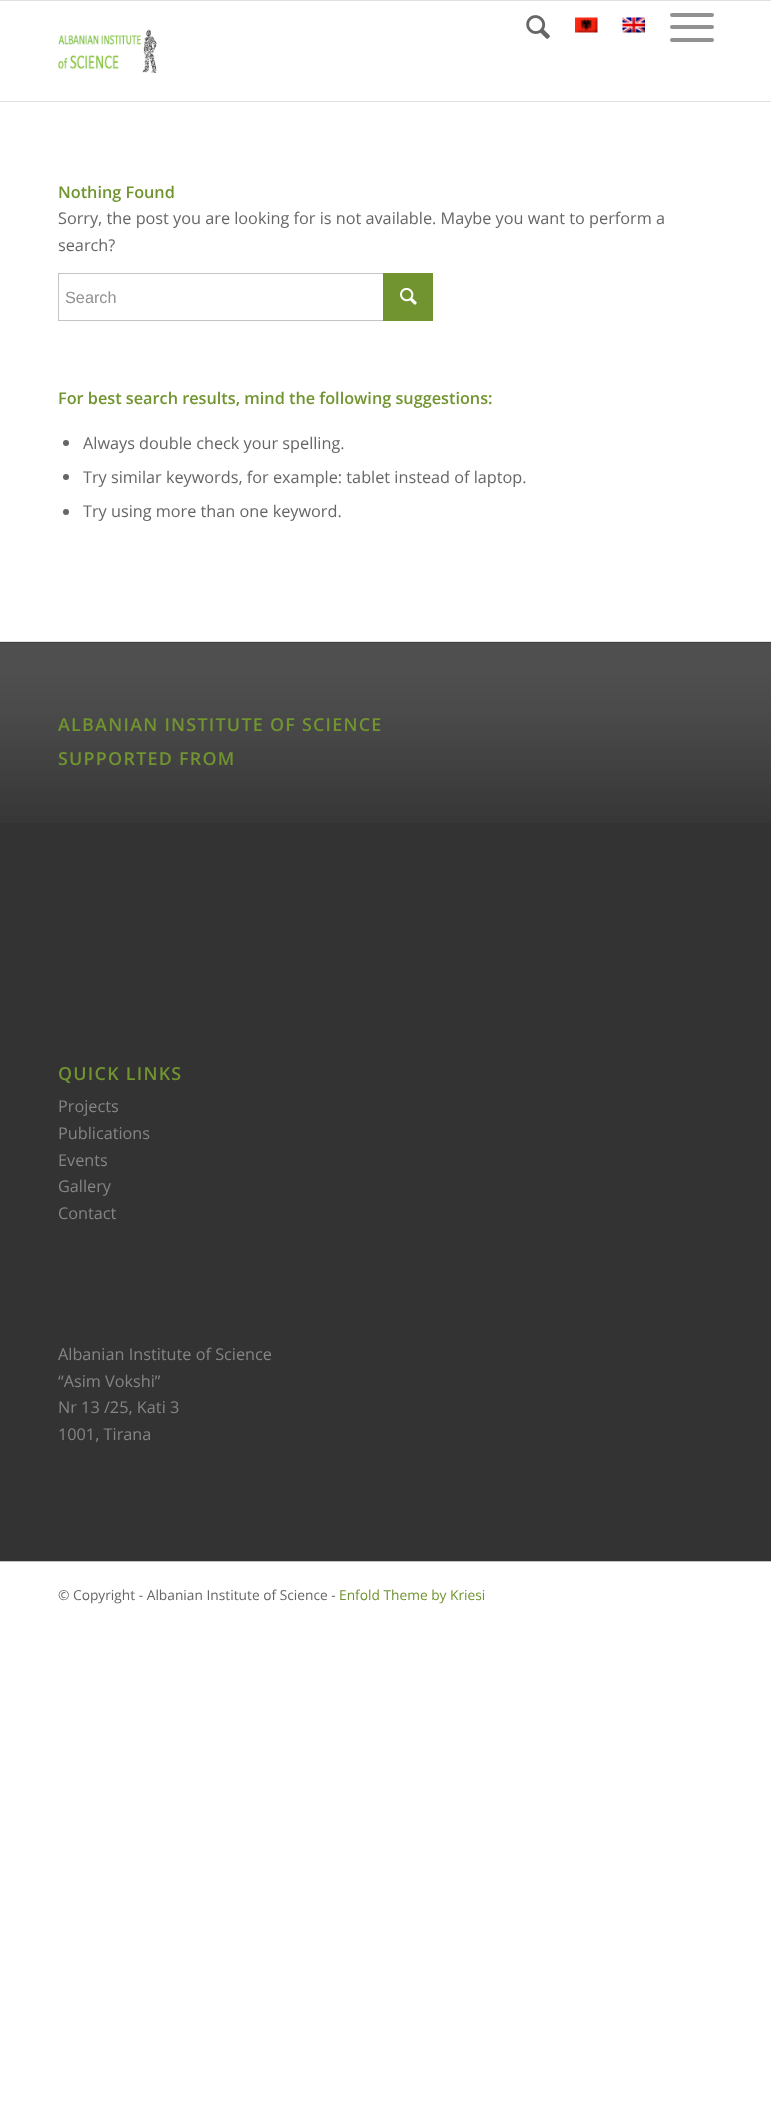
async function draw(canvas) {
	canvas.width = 771;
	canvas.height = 2120;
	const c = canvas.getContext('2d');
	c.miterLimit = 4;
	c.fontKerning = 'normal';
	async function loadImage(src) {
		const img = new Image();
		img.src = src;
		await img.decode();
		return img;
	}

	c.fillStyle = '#fff';
	c.fillRect(0, 0, 771, 2120);
	c.fillStyle = '#e1e1e1';
	c.fillRect(0, 0, 771, 1);
	c.fillRect(0, 101, 771, 1);
	c.drawImage(await loadImage('img1.png'), 58, 29, 99, 44);
	c.drawImage(await loadImage('img2.png'), 526, 15, 24, 24);
	c.drawImage(await loadImage('img3.png'), 575, 17, 23, 16);
	c.drawImage(await loadImage('img4.png'), 622, 17, 23, 16);
	c.fillStyle = '#919191';
	c.beginPath();
	c.roundRect(670, 25, 44, 4, 2);
	c.fill();
	c.beginPath();
	c.roundRect(670, 13, 44, 4, 2);
	c.fill();
	c.beginPath();
	c.roundRect(670, 38, 44, 4, 2);
	c.fill();
	c.font = '600 16.25px Open Sans';
	c.fillStyle = '#719430';
	c.fillText('Nothing Found', 58, 198);
	c.font = '16.25px Open Sans';
	c.fillStyle = '#666';
	c.fillText('Sorry, the post you are looking for is not available. Maybe you want to perform a', 58, 224);
	c.fillText('search?', 58, 251);
	c.strokeStyle = '#c4c4c4';
	c.strokeRect(58.5, 273.5, 374, 47);
	c.font = '16.25px Liberation Sans';
	c.fillStyle = '#919191';
	c.fillText('Search', 65, 303);
	c.fillStyle = '#719430';
	c.fillRect(383, 273, 50, 48);
	c.drawImage(await loadImage('img5.png'), 400, 287, 17, 18);
	c.font = '600 16.25px Open Sans';
	c.fillText('For best search results, mind the following suggestions:', 58, 404);
	c.fillStyle = '#666';
	c.beginPath();
	c.arc(66, 443, 3, 0, 2 * Math.PI);
	c.fill();
	c.font = '16.25px Open Sans';
	c.fillText('Always double check your spelling.', 83, 449);
	c.beginPath();
	c.arc(66, 477, 3, 0, 2 * Math.PI);
	c.fill();
	c.fillText('Try similar keywords, for example: tablet instead of laptop.', 83, 483);
	c.beginPath();
	c.arc(66, 512, 3, 0, 2 * Math.PI);
	c.fill();
	c.fillText('Try using more than one keyword.', 83, 517);
	c.fillStyle = '#333';
	c.fillRect(0, 642, 771, 919);
	c.drawImage(await loadImage('img6.png'), 0, 642, 771, 181);
	c.fillStyle = '#e1e1e1';
	c.fillRect(0, 641, 771, 1);
	c.letterSpacing = '1.25px';
	c.font = '600 17.9px Open Sans';
	c.fillStyle = '#719430';
	for (const [text, x, y] of [
		['ALBANIAN INSTITUTE OF SCIENCE', 58, 731],
		['SUPPORTED FROM', 58, 765],
		['QUICK LINKS', 58, 1080],
	]) {
		c.fillText(text, x, y);
	}
	c.letterSpacing = '0px';
	c.font = '16.25px Open Sans';
	c.fillStyle = '#858585';
	for (const [text, x, y] of [
		['Projects', 58, 1112],
		['Publications', 58, 1139],
		['Events', 58, 1166],
		['Gallery', 58, 1192],
		['Contact', 58, 1219],
		['Albanian Institute of Science', 58, 1360],
		['“Asim Vokshi”', 58, 1387],
		['Nr 13 /25, Kati 3', 58, 1413],
		['1001, Tirana', 58, 1440],
	]) {
		c.fillText(text, x, y);
	}
	c.fillStyle = '#c4c4c4';
	c.fillRect(0, 1561, 771, 1);
	c.font = '13.75px Open Sans';
	c.fillStyle = '#666';
	c.fillText('© Copyright - Albanian Institute of Science -', 58, 1600);
	c.fillStyle = '#719430';
	c.fillText('Enfold Theme by Kriesi', 339, 1600);
}

draw(document.querySelector('canvas'));
